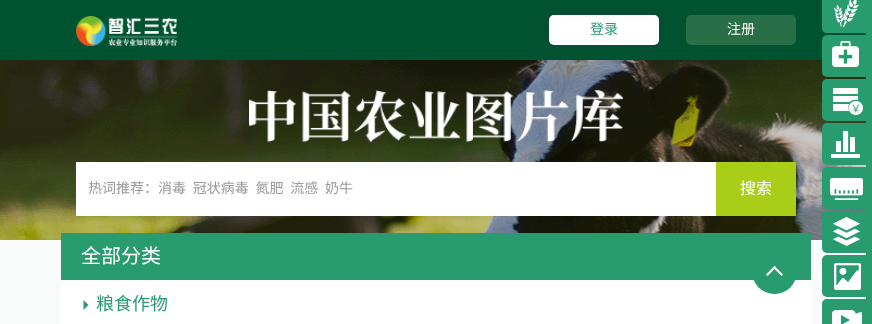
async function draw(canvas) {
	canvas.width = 872;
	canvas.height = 324;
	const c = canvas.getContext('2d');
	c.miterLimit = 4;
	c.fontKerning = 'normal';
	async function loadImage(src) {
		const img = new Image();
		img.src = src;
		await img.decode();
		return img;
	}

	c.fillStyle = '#f9fafa';
	c.fillRect(0, 0, 872, 324);
	c.fillStyle = '#005331';
	c.fillRect(0, 0, 866, 60);
	c.drawImage(await loadImage('img1.png'), 76, 16, 101, 30);
	c.drawImage(await loadImage('img2.png'), 0, 60, 866, 180);
	c.fillStyle = '#39393945';
	c.filter = 'blur(5px)';
	c.beginPath();
	c.roundRect(548, 14, 112, 32, 6);
	c.fill();
	c.filter = 'none';
	c.fillStyle = '#fff';
	c.beginPath();
	c.roundRect(549, 15, 110, 30, 5);
	c.fill();
	c.font = '14px Noto Sans CJK SC';
	c.fillStyle = '#289b6f';
	c.fillText('登录', 590, 34);
	c.fillStyle = '#286f47';
	c.beginPath();
	c.roundRect(686, 15, 110, 30, 5);
	c.fill();
	c.fillStyle = '#fff';
	c.fillText('注册', 727, 34);
	c.drawImage(await loadImage('img3.png'), 249, 90, 375, 52);
	c.fillRect(76, 162, 640, 54);
	c.wordSpacing = '0.25px';
	c.fillStyle = '#999';
	c.fillText('热词推荐：消毒  冠状病毒  氮肥  流感  奶牛', 88, 193);
	c.fillStyle = '#aace18';
	c.fillRect(716, 162, 80, 54);
	c.wordSpacing = '0px';
	c.font = '16px Noto Sans CJK SC';
	c.fillStyle = '#fff';
	c.fillText('搜索', 740, 194);
	c.fillRect(61, 280, 750, 44);
	c.fillStyle = '#289b6f';
	c.fillRect(61, 233, 750, 47);
	c.font = '20px Noto Sans CJK SC';
	c.fillStyle = '#fff';
	c.fillText('全部分类', 81, 263);
	c.drawImage(await loadImage('img4.png'), 83, 300, 6, 10);
	c.font = '18px Noto Sans CJK SC';
	c.fillStyle = '#289b6f';
	c.fillText('粮食作物', 96, 310);
	c.beginPath();
	c.arc(774.5, 271.5, 22.5, 0, 2 * Math.PI);
	c.fill();
	c.fillStyle = '#fff';
	c.beginPath();
	c.moveTo(774.5, 266);
	c.lineTo(783, 274.5);
	c.lineTo(781.5, 276);
	c.lineTo(773, 267.5);
	c.closePath();
	c.fill();
	c.beginPath();
	c.moveTo(774.5, 266);
	c.lineTo(776, 267.5);
	c.lineTo(767.5, 276);
	c.lineTo(766, 274.5);
	c.closePath();
	c.fill();
	c.fillStyle = '#289b6f';
	c.fillRect(866, 33, 6, 266);
	c.beginPath();
	c.moveTo(827, -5);
	c.lineTo(872, -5);
	c.lineTo(872, 33);
	c.lineTo(827, 33);
	c.bezierCurveTo(824, 33, 822, 31, 822, 28);
	c.lineTo(822, 0);
	c.bezierCurveTo(822, -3, 824, -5, 827, -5);
	c.closePath();
	c.fill();
	c.drawImage(await loadImage('img5.png'), 834, 0, 26, 27);
	c.beginPath();
	c.roundRect(822, 35, 50, 42, [5, 0, 0, 5]);
	c.fill();
	c.drawImage(await loadImage('img6.png'), 832, 41, 27, 26);
	c.beginPath();
	c.roundRect(822, 79, 50, 42, [5, 0, 0, 5]);
	c.fill();
	c.drawImage(await loadImage('img7.png'), 833, 88, 30, 27);
	c.beginPath();
	c.roundRect(822, 123, 50, 42, [5, 0, 0, 5]);
	c.fill();
	c.drawImage(await loadImage('img8.png'), 831, 131, 29, 27);
	c.beginPath();
	c.roundRect(822, 167, 50, 42, [5, 0, 0, 5]);
	c.fill();
	c.drawImage(await loadImage('img9.png'), 830, 178, 33, 22);
	c.beginPath();
	c.roundRect(822, 211, 50, 42, [5, 0, 0, 5]);
	c.fill();
	c.drawImage(await loadImage('img10.png'), 833, 217, 27, 29);
	c.beginPath();
	c.roundRect(822, 255, 50, 42, [5, 0, 0, 5]);
	c.fill();
	c.drawImage(await loadImage('img11.png'), 834, 263, 27, 27);
	c.beginPath();
	c.moveTo(827, 299);
	c.lineTo(872, 299);
	c.lineTo(872, 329);
	c.lineTo(827, 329);
	c.bezierCurveTo(824, 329, 822, 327, 822, 324);
	c.lineTo(822, 304);
	c.bezierCurveTo(822, 301, 824, 299, 827, 299);
	c.closePath();
	c.fill();
	c.drawImage(await loadImage('img12.png'), 832, 310, 30, 14);
}

draw(document.querySelector('canvas'));
